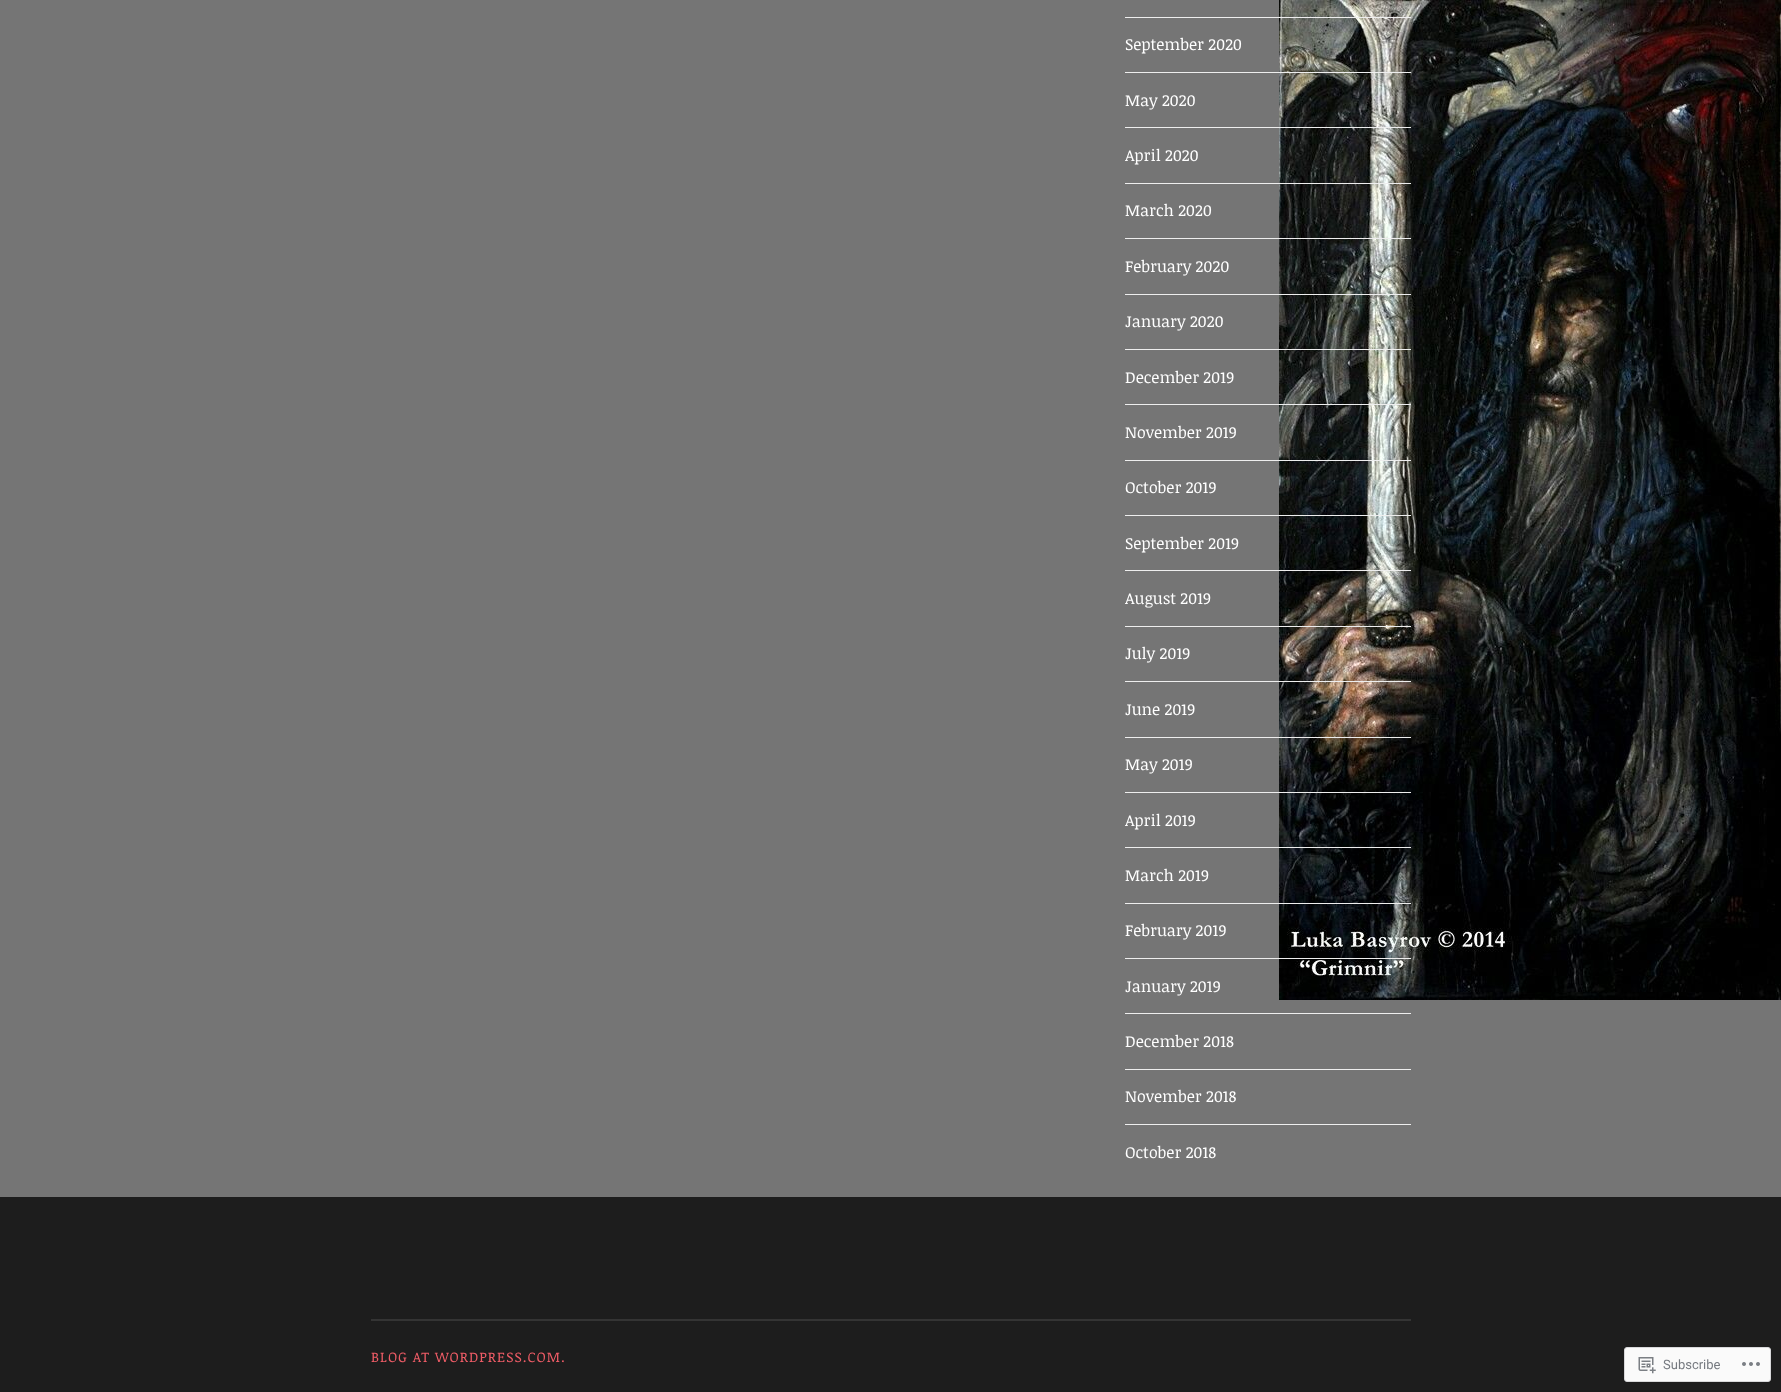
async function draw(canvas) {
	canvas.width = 1781;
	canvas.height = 1392;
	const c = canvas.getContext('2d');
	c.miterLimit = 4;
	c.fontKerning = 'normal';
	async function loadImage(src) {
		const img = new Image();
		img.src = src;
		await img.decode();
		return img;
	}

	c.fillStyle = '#757575';
	c.fillRect(0, 0, 1781, 1392);
	c.drawImage(await loadImage('img1.png'), 1279, 0, 502, 1000);
	c.fillStyle = '#eee';
	c.fillRect(1125, 17, 286, 1);
	c.font = '16px Noticia Text';
	c.fillStyle = '#fff';
	c.fillText('September 2020', 1125, 50);
	c.fillStyle = '#eee';
	c.fillRect(1125, 72, 286, 1);
	c.fillStyle = '#fff';
	c.fillText('May 2020', 1125, 106);
	c.fillStyle = '#eee';
	c.fillRect(1125, 127, 286, 1);
	c.fillStyle = '#fff';
	c.fillText('April 2020', 1125, 161);
	c.fillStyle = '#eee';
	c.fillRect(1125, 183, 286, 1);
	c.fillStyle = '#fff';
	c.fillText('March 2020', 1125, 216);
	c.fillStyle = '#eee';
	c.fillRect(1125, 238, 286, 1);
	c.fillStyle = '#fff';
	c.fillText('February 2020', 1125, 272);
	c.fillStyle = '#eee';
	c.fillRect(1125, 294, 286, 1);
	c.fillStyle = '#fff';
	c.fillText('January 2020', 1125, 327);
	c.fillStyle = '#eee';
	c.fillRect(1125, 349, 286, 1);
	c.fillStyle = '#fff';
	c.fillText('December 2019', 1125, 383);
	c.fillStyle = '#eee';
	c.fillRect(1125, 404, 286, 1);
	c.fillStyle = '#fff';
	c.fillText('November 2019', 1125, 438);
	c.fillStyle = '#eee';
	c.fillRect(1125, 460, 286, 1);
	c.fillStyle = '#fff';
	c.fillText('October 2019', 1125, 493);
	c.fillStyle = '#eee';
	c.fillRect(1125, 515, 286, 1);
	c.fillStyle = '#fff';
	c.fillText('September 2019', 1125, 549);
	c.fillStyle = '#eee';
	c.fillRect(1125, 570, 286, 1);
	c.fillStyle = '#fff';
	c.fillText('August 2019', 1125, 604);
	c.fillStyle = '#eee';
	c.fillRect(1125, 626, 286, 1);
	c.fillStyle = '#fff';
	c.fillText('July 2019', 1125, 659);
	c.fillStyle = '#eee';
	c.fillRect(1125, 681, 286, 1);
	c.fillStyle = '#fff';
	c.fillText('June 2019', 1125, 715);
	c.fillStyle = '#eee';
	c.fillRect(1125, 737, 286, 1);
	c.fillStyle = '#fff';
	c.fillText('May 2019', 1125, 770);
	c.fillStyle = '#eee';
	c.fillRect(1125, 792, 286, 1);
	c.fillStyle = '#fff';
	c.fillText('April 2019', 1125, 826);
	c.fillStyle = '#eee';
	c.fillRect(1125, 847, 286, 1);
	c.fillStyle = '#fff';
	c.fillText('March 2019', 1125, 881);
	c.fillStyle = '#eee';
	c.fillRect(1125, 903, 286, 1);
	c.fillStyle = '#fff';
	c.fillText('February 2019', 1125, 936);
	c.fillStyle = '#eee';
	c.fillRect(1125, 958, 286, 1);
	c.fillStyle = '#fff';
	c.fillText('January 2019', 1125, 992);
	c.fillStyle = '#eee';
	c.fillRect(1125, 1013, 286, 1);
	c.fillStyle = '#fff';
	c.fillText('December 2018', 1125, 1047);
	c.fillStyle = '#eee';
	c.fillRect(1125, 1069, 286, 1);
	c.fillStyle = '#fff';
	c.fillText('November 2018', 1125, 1102);
	c.fillStyle = '#eee';
	c.fillRect(1125, 1124, 286, 1);
	c.fillStyle = '#fff';
	c.fillText('October 2018', 1125, 1158);
	c.fillStyle = '#1d1d1d';
	c.fillRect(0, 1197, 1781, 195);
	c.fillStyle = '#343434';
	c.fillRect(371, 1319, 1040, 2);
	c.letterSpacing = '1px';
	c.font = '14px Noticia Text';
	c.fillStyle = '#ee5c66';
	c.fillText('BLOG AT WORDPRESS.COM.', 371, 1362);
	c.fillStyle = '#fafafa';
	c.beginPath();
	c.roundRect(1624.5, 1347.5, 146, 34, 2.5);
	c.fill();
	c.strokeStyle = '#d8d8da';
	c.stroke();
	c.drawImage(await loadImage('img2.png'), 1638, 1357, 18, 17);
	c.letterSpacing = '0px';
	c.font = '13px Roboto';
	c.fillStyle = '#767a80';
	c.fillText('Subscribe', 1663, 1369);
	c.drawImage(await loadImage('img3.png'), 1742, 1362, 18, 4);
}

draw(document.querySelector('canvas'));
